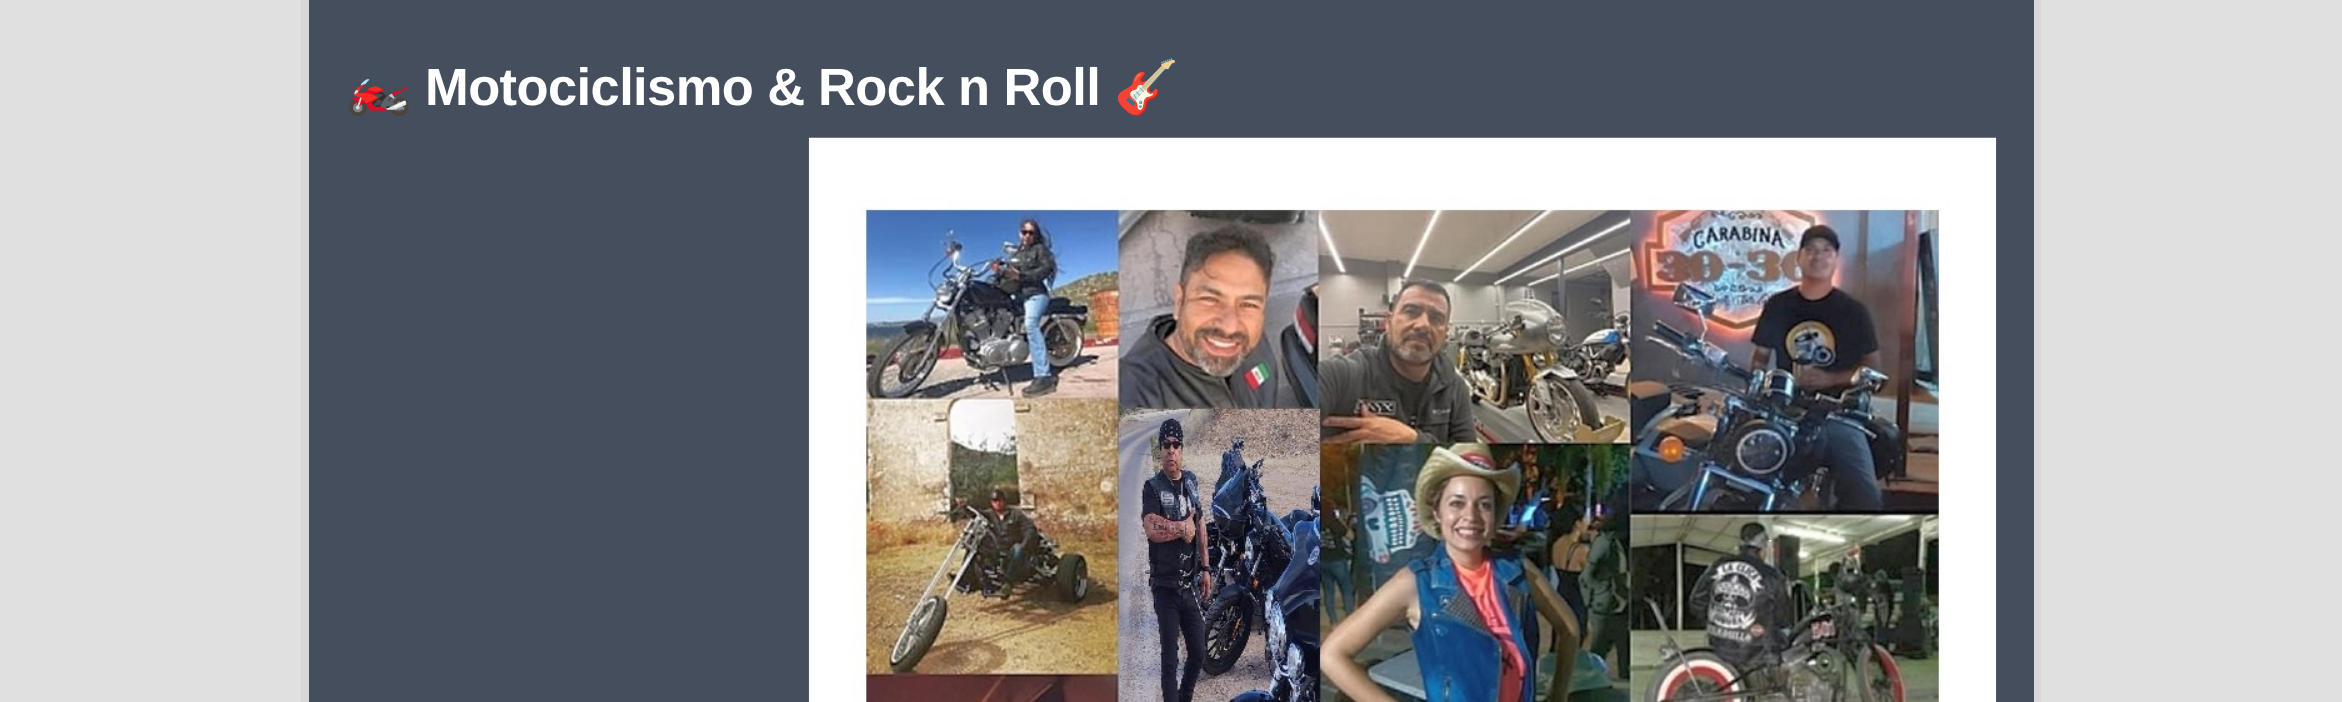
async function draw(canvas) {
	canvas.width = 2342;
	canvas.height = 702;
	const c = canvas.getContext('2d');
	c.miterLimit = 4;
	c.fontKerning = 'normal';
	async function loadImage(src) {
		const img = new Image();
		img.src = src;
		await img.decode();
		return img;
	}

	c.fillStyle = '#e0e0e0';
	c.fillRect(0, 0, 2342, 702);
	c.fillStyle = '#d7d7d7';
	c.beginPath();
	c.moveTo(301, 0);
	c.lineTo(301, 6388);
	c.lineTo(2026, 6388);
	c.lineTo(309, 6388);
	c.lineTo(309, 0);
	c.closePath();
	c.fill();
	c.beginPath();
	c.moveTo(316, 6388);
	c.lineTo(2041, 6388);
	c.lineTo(2041, 0);
	c.lineTo(2034, 0);
	c.lineTo(2034, 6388);
	c.closePath();
	c.fill();
	c.fillStyle = '#454e5c';
	c.fillRect(309, 0, 1725, 702);
	c.letterSpacing = '-0.6px';
	c.font = 'bold 52.5px Noto Color Emoji';
	c.fillStyle = '#fff';
	c.fillText('🏍️', 346, 105);
	c.font = 'bold 52.5px Liberation Sans';
	c.fillText('Motociclismo &', 425, 105);
	c.fillText('Rock n Roll', 818, 105);
	c.font = 'bold 52.5px Noto Color Emoji';
	c.fillText('🎸', 1114, 105);
	c.drawImage(await loadImage('img1.png'), 808, 137, 1189, 565);
}

draw(document.querySelector('canvas'));
